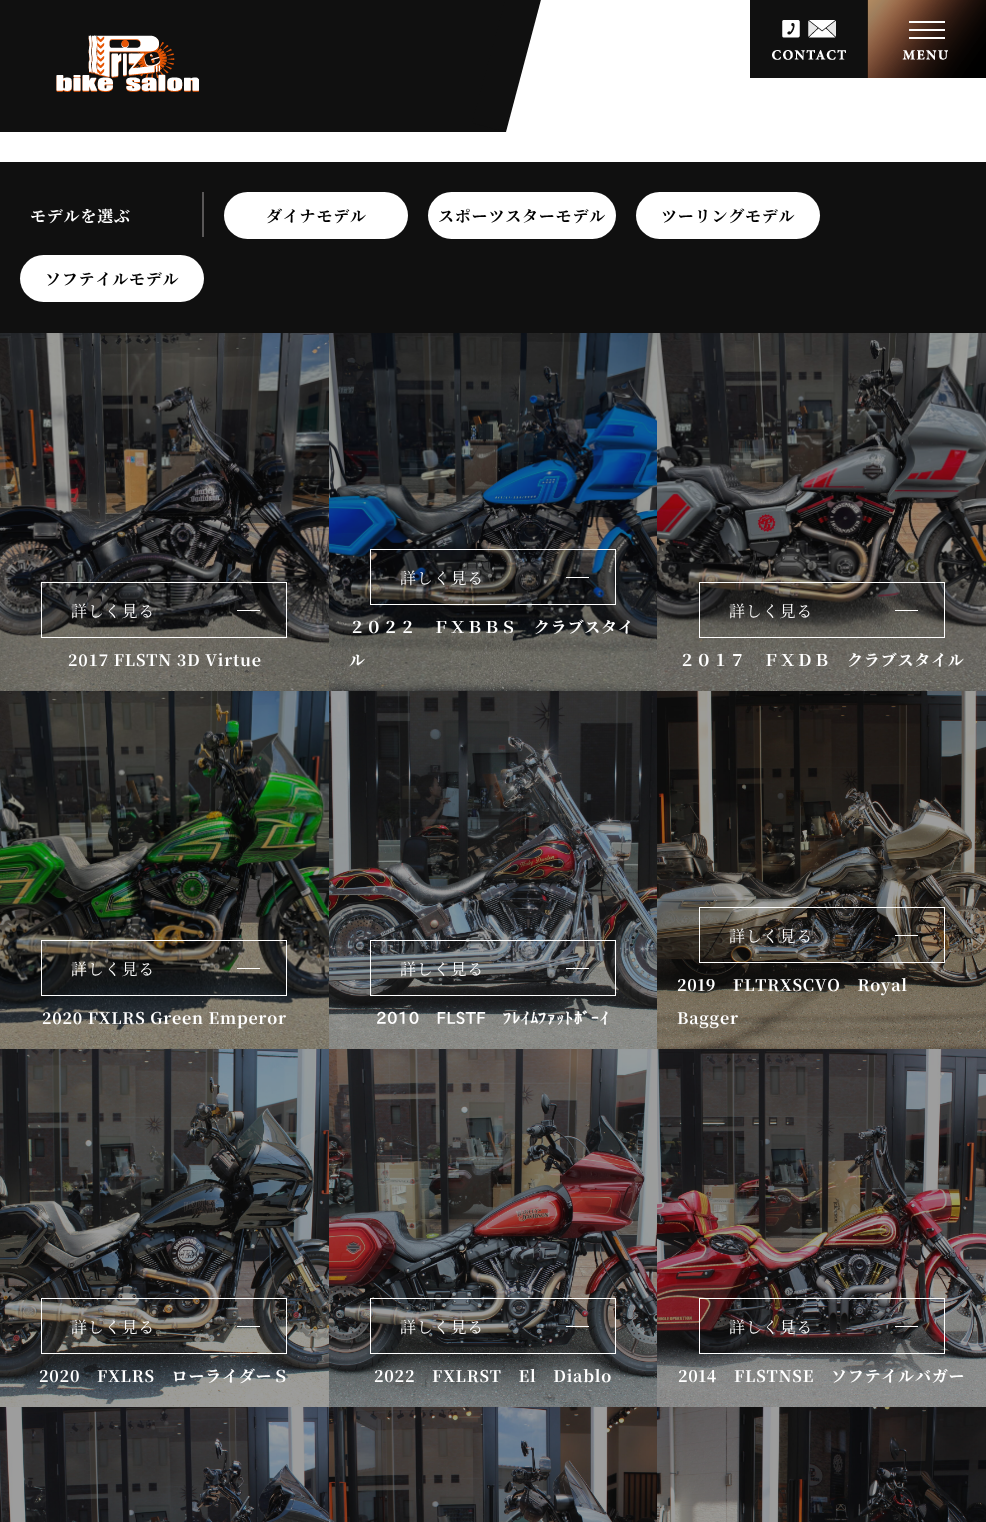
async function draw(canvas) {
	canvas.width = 986;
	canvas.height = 1522;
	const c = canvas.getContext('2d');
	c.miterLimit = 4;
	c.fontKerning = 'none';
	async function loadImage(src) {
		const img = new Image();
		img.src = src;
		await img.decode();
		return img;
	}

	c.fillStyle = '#fff';
	c.fillRect(0, 0, 986, 1522);
	c.fillStyle = '#101010';
	c.fillRect(0, 0, 506, 132);
	c.drawImage(await loadImage('img1.png'), 56, 35, 143, 57);
	c.drawImage(await loadImage('img2.png'), 750, 0, 118, 78);
	c.drawImage(await loadImage('img3.png'), 867, 0, 119, 78);
	for (const [x, y, w, h, color] of [
		[909, 21, 36, 2, '#fff'],
		[909, 29, 36, 2, '#fff'],
		[909, 37, 36, 2, '#fff'],
	]) {
		c.fillStyle = color;
		c.fillRect(x, y, w, h);
	}
	c.drawImage(await loadImage('img4.png'), 902, 50, 46, 10);
	c.fillStyle = '#101010';
	c.beginPath();
	c.moveTo(514, -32);
	c.lineTo(547, -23);
	c.lineTo(506, 132);
	c.lineTo(472, 123);
	c.closePath();
	c.fill();
	c.fillRect(0, 162, 986, 171);
	c.fillStyle = '#595757';
	c.fillRect(202, 192, 2, 45);
	c.letterSpacing = '0.8px';
	c.font = 'bold 16px Noto Serif JP';
	c.fillStyle = '#fff';
	c.fillText('モデルを選ぶ', 30, 222);
	c.beginPath();
	c.roundRect(224, 192, 184, 47, 23.5);
	c.fill();
	c.fillStyle = '#000';
	c.fillText('ダイナモデル', 266, 222);
	c.fillStyle = '#fff';
	c.beginPath();
	c.roundRect(428, 192, 188, 47, 23.5);
	c.fill();
	c.fillStyle = '#000';
	c.fillText('スポーツスターモデル', 438, 222);
	c.fillStyle = '#fff';
	c.beginPath();
	c.roundRect(636, 192, 184, 47, 23.5);
	c.fill();
	c.fillStyle = '#000';
	c.fillText('ツーリングモデル', 661, 222);
	c.fillStyle = '#fff';
	c.beginPath();
	c.roundRect(20, 255, 184, 47, 23.5);
	c.fill();
	c.fillStyle = '#000';
	c.fillText('ソフテイルモデル', 45, 285);
	c.drawImage(await loadImage('img5.png'), 0, 333, 329, 358);
	c.strokeStyle = '#fff';
	c.strokeRect(41.5, 582.5, 245, 55);
	c.font = '16px Noto Serif JP';
	c.fillStyle = '#fff';
	c.fillText('詳しく見る', 71, 617);
	c.fillRect(237, 610, 23, 1);
	c.font = 'bold 16px Noto Serif JP';
	c.fillText('2017 FLSTN 3D Virtue', 68, 666);
	c.drawImage(await loadImage('img6.png'), 329, 333, 328, 358);
	c.strokeRect(370.5, 549.5, 245, 55);
	c.font = '16px Noto Serif JP';
	c.fillText('詳しく見る', 400, 584);
	c.fillRect(566, 577, 23, 1);
	c.font = 'bold 16px Noto Serif JP';
	c.fillText('２０２２　ＦＸＢＢＳ　クラブスタイ', 349, 633);
	c.fillText('ル', 349, 666);
	c.drawImage(await loadImage('img7.png'), 657, 333, 329, 358);
	c.strokeRect(699.5, 582.5, 245, 55);
	c.font = '16px Noto Serif JP';
	c.fillText('詳しく見る', 729, 617);
	c.fillRect(895, 610, 23, 1);
	c.font = 'bold 16px Noto Serif JP';
	c.fillText('２０１７　ＦＸＤＢ　クラブスタイル', 679, 666);
	c.drawImage(await loadImage('img8.png'), 0, 691, 329, 358);
	c.strokeRect(41.5, 940.5, 245, 55);
	c.font = '16px Noto Serif JP';
	c.fillText('詳しく見る', 71, 975);
	c.fillRect(237, 968, 23, 1);
	c.font = 'bold 16px Noto Serif JP';
	c.fillText('2020 FXLRS Green Emperor', 42, 1024);
	c.drawImage(await loadImage('img9.png'), 329, 691, 328, 358);
	c.strokeRect(370.5, 940.5, 245, 55);
	c.font = '16px Noto Serif JP';
	c.fillText('詳しく見る', 400, 975);
	c.fillRect(566, 968, 23, 1);
	c.font = 'bold 16px IPAPGothic';
	c.fillText('2010　FLSTF', 376, 1024);
	c.font = 'bold 16px Noto Serif JP';
	c.fillText('ﾌ', 503, 1024);
	c.font = 'bold 16px IPAPGothic';
	c.fillText('ﾚ', 512, 1024);
	c.font = 'bold 16px Noto Serif JP';
	c.fillText('ｲ', 521, 1024);
	c.font = 'bold 16px IPAPGothic';
	c.fillText('ﾑ', 530, 1024);
	c.font = 'bold 16px Noto Serif JP';
	c.fillText('ﾌ', 538, 1024);
	c.font = 'bold 16px IPAPGothic';
	c.fillText('ｧ', 547, 1024);
	c.font = 'bold 16px Noto Serif JP';
	c.fillText('ｯﾄ', 556, 1024);
	c.font = 'bold 16px IPAPGothic';
	c.fillText('ﾎﾞｰ', 574, 1024);
	c.font = 'bold 16px Noto Serif JP';
	c.fillText('ｲ', 600, 1024);
	c.drawImage(await loadImage('img10.png'), 657, 691, 329, 358);
	c.strokeRect(699.5, 907.5, 245, 55);
	c.font = '16px Noto Serif JP';
	c.fillText('詳しく見る', 729, 942);
	c.fillRect(895, 935, 23, 1);
	c.font = 'bold 16px Noto Serif JP';
	c.fillText('2019　FLTRXSCVO　Royal', 677, 991);
	c.fillText('Bagger', 677, 1024);
	c.drawImage(await loadImage('img11.png'), 0, 1049, 329, 358);
	c.strokeRect(41.5, 1298.5, 245, 55);
	c.font = '16px Noto Serif JP';
	c.fillText('詳しく見る', 71, 1333);
	c.fillRect(237, 1326, 23, 1);
	c.font = 'bold 16px Noto Serif JP';
	c.fillText('2020　FXLRS　ローライダーＳ', 39, 1382);
	c.drawImage(await loadImage('img12.png'), 329, 1049, 328, 358);
	c.strokeRect(370.5, 1298.5, 245, 55);
	c.font = '16px Noto Serif JP';
	c.fillText('詳しく見る', 400, 1333);
	c.fillRect(566, 1326, 23, 1);
	c.font = 'bold 16px Noto Serif JP';
	c.fillText('2022　FXLRST　El　Diablo', 374, 1382);
	c.drawImage(await loadImage('img13.png'), 657, 1049, 329, 358);
	c.strokeRect(699.5, 1298.5, 245, 55);
	c.font = '16px Noto Serif JP';
	c.fillText('詳しく見る', 729, 1333);
	c.fillRect(895, 1326, 23, 1);
	c.font = 'bold 16px Noto Serif JP';
	c.fillText('2014　FLSTNSE　ソフテイルバガー', 678, 1382);
	c.drawImage(await loadImage('img14.png'), 0, 1407, 329, 115);
	c.drawImage(await loadImage('img15.png'), 329, 1407, 328, 115);
	c.drawImage(await loadImage('img16.png'), 657, 1407, 329, 115);
}

draw(document.querySelector('canvas'));
